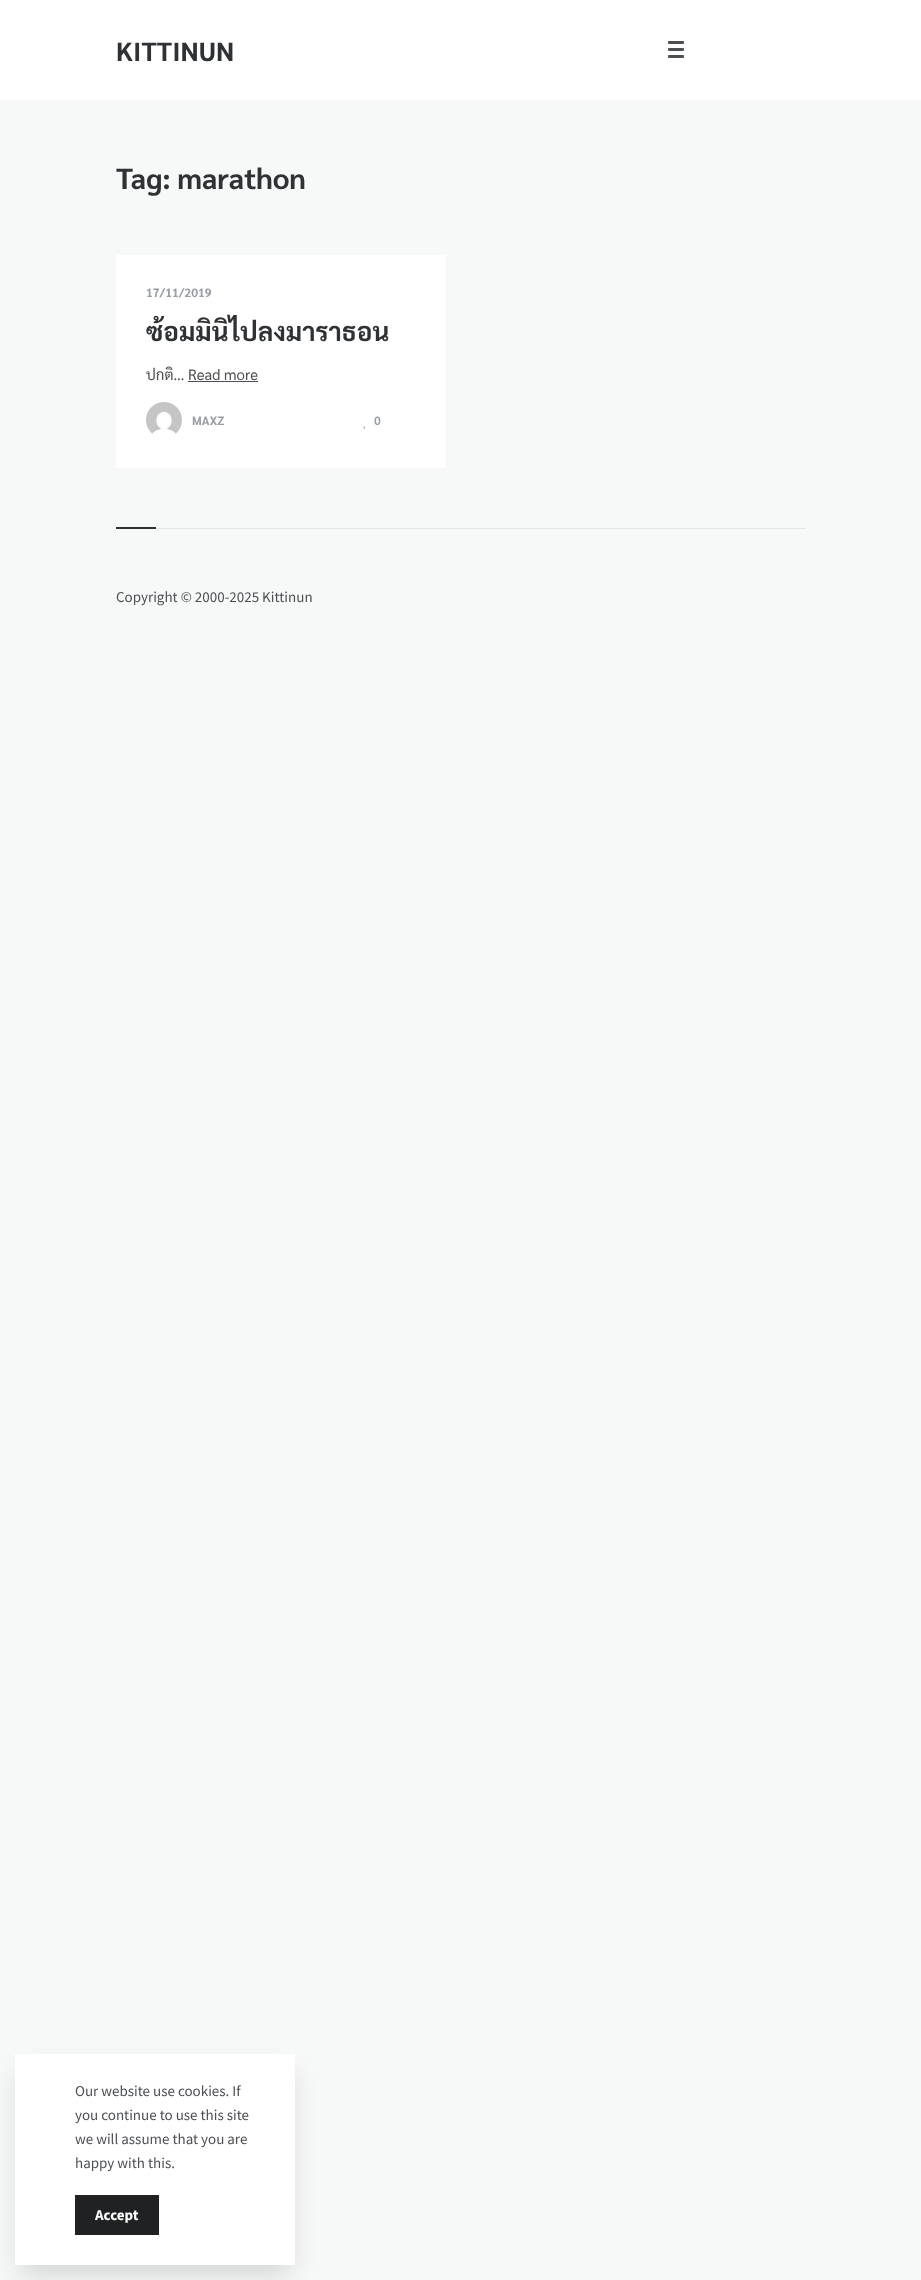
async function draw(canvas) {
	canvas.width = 921;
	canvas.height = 2280;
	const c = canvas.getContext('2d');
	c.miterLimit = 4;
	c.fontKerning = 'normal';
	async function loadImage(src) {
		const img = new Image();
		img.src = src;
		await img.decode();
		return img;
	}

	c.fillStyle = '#f7f8f8';
	c.fillRect(0, 0, 921, 2280);
	c.fillStyle = '#fff';
	c.fillRect(0, 0, 921, 100);
	c.font = 'bold 26px Sarabun';
	c.fillStyle = '#2f3235';
	c.fillText('KITTINUN', 116, 61);
	c.fillStyle = '#4c4f53';
	c.beginPath();
	c.roundRect(668, 48, 16, 3, 1);
	c.fill();
	c.beginPath();
	c.roundRect(668, 41, 16, 3, 1);
	c.fill();
	c.beginPath();
	c.roundRect(668, 55, 16, 3, 1);
	c.fill();
	c.font = 'bold 29px Sarabun';
	c.fillStyle = '#2f3235';
	c.fillText('Tag: marathon', 116, 189);
	c.fillStyle = '#fff';
	c.fillRect(116, 255, 330, 213);
	c.font = 'bold 12px Sarabun';
	c.fillStyle = '#989ea6';
	c.fillText('17/11/2019', 146, 297);
	c.font = 'bold 26px Sarabun';
	c.fillStyle = '#2f3235';
	c.fillText('ซ้อมมินิไปลงมาราธอน', 146, 341);
	c.font = '15px Sarabun';
	c.fillStyle = '#4c4f53';
	c.fillText('ปกติ… Read more', 146, 380);
	c.fillRect(188, 381, 70, 1);
	c.drawImage(await loadImage('img1.png'), 146, 402, 36, 32);
	c.font = 'bold 12px Sarabun';
	c.fillStyle = '#989ea6';
	c.fillText('MAXZ', 192, 425);
	c.font = 'bold 12px PT Sans';
	c.fillText('0', 374, 425);
	c.drawImage(await loadImage('img2.png'), 363, 426, 2, 4);
	c.fillStyle = '#e3e5e6';
	c.fillRect(156, 528, 650, 1);
	c.fillStyle = '#2f3235';
	c.fillRect(116, 527, 40, 2);
	c.font = '15px Source Sans Pro';
	c.fillStyle = '#4c4f53';
	c.fillText('Copyright © 2000-2025 Kittinun', 116, 602);
	c.fillStyle = '#0e111426';
	c.filter = 'blur(14px)';
	c.beginPath();
	c.rect(19, 2072, 272, 203);
	c.fill();
	c.filter = 'none';
	c.fillStyle = '#fff';
	c.fillRect(15, 2054, 280, 211);
	c.fillStyle = '#4c4f53';
	for (const [text, x, y] of [
		['Our website use cookies. If', 75, 2096],
		['you continue to use this site', 75, 2120],
		['we will assume that you are', 75, 2144],
		['happy with this.', 75, 2168],
	]) {
		c.fillText(text, x, y);
	}
	c.fillStyle = '#1f2123';
	c.fillRect(75, 2195, 84, 40);
	c.font = 'bold 15px Source Sans Pro';
	c.fillStyle = '#fff';
	c.fillText('Accept', 95, 2220);
}

draw(document.querySelector('canvas'));
